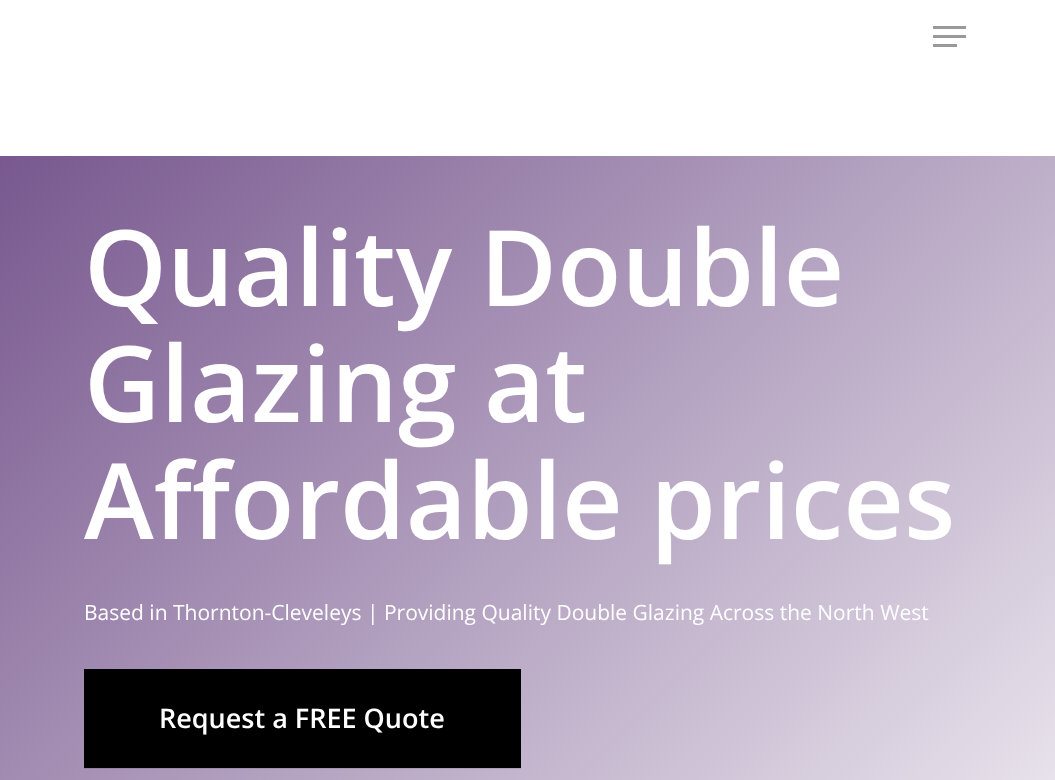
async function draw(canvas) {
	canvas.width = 1055;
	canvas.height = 780;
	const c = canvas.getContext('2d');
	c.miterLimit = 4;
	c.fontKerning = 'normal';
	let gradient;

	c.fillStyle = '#fff';
	c.fillRect(0, 0, 1055, 780);
	for (const [x, y, w, h, color] of [
		[933, 26, 33, 3, '#999'],
		[933, 44, 24, 3, '#999'],
		[933, 35, 33, 3, '#999'],
	]) {
		c.fillStyle = color;
		c.fillRect(x, y, w, h);
	}
	gradient = c.createLinearGradient(26, 130, 1030, 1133);
	gradient.addColorStop(0, '#78588f');
	gradient.addColorStop(1, '#fdfdfd');
	c.fillStyle = gradient;
	c.fillRect(0, 156, 1055, 624);
	gradient = c.createLinearGradient(26, 130, 1030, 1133);
	gradient.addColorStop(0, '#6c4f81');
	gradient.addColorStop(1, '#e4e4e4');
	c.fillStyle = gradient;
	c.fillRect(84, 768, 437, 1);
	c.font = '600 105.5px Open Sans';
	c.fillStyle = '#fff';
	for (const [text, x, y] of [
		['Quality Double', 84, 306],
		['Glazing at', 84, 422],
		['Affordable prices', 84, 539],
	]) {
		c.fillText(text, x, y);
	}
	c.font = '21px Open Sans';
	c.fillText('Based in Thornton-Cleveleys | Providing Quality Double Glazing Across the North West', 84, 620);
	c.fillStyle = '#000';
	c.fillRect(84, 669, 437, 99);
	c.font = '600 27px Open Sans';
	c.fillStyle = '#fff';
	c.fillText('Request a FREE Quote', 159, 728);
}

draw(document.querySelector('canvas'));
